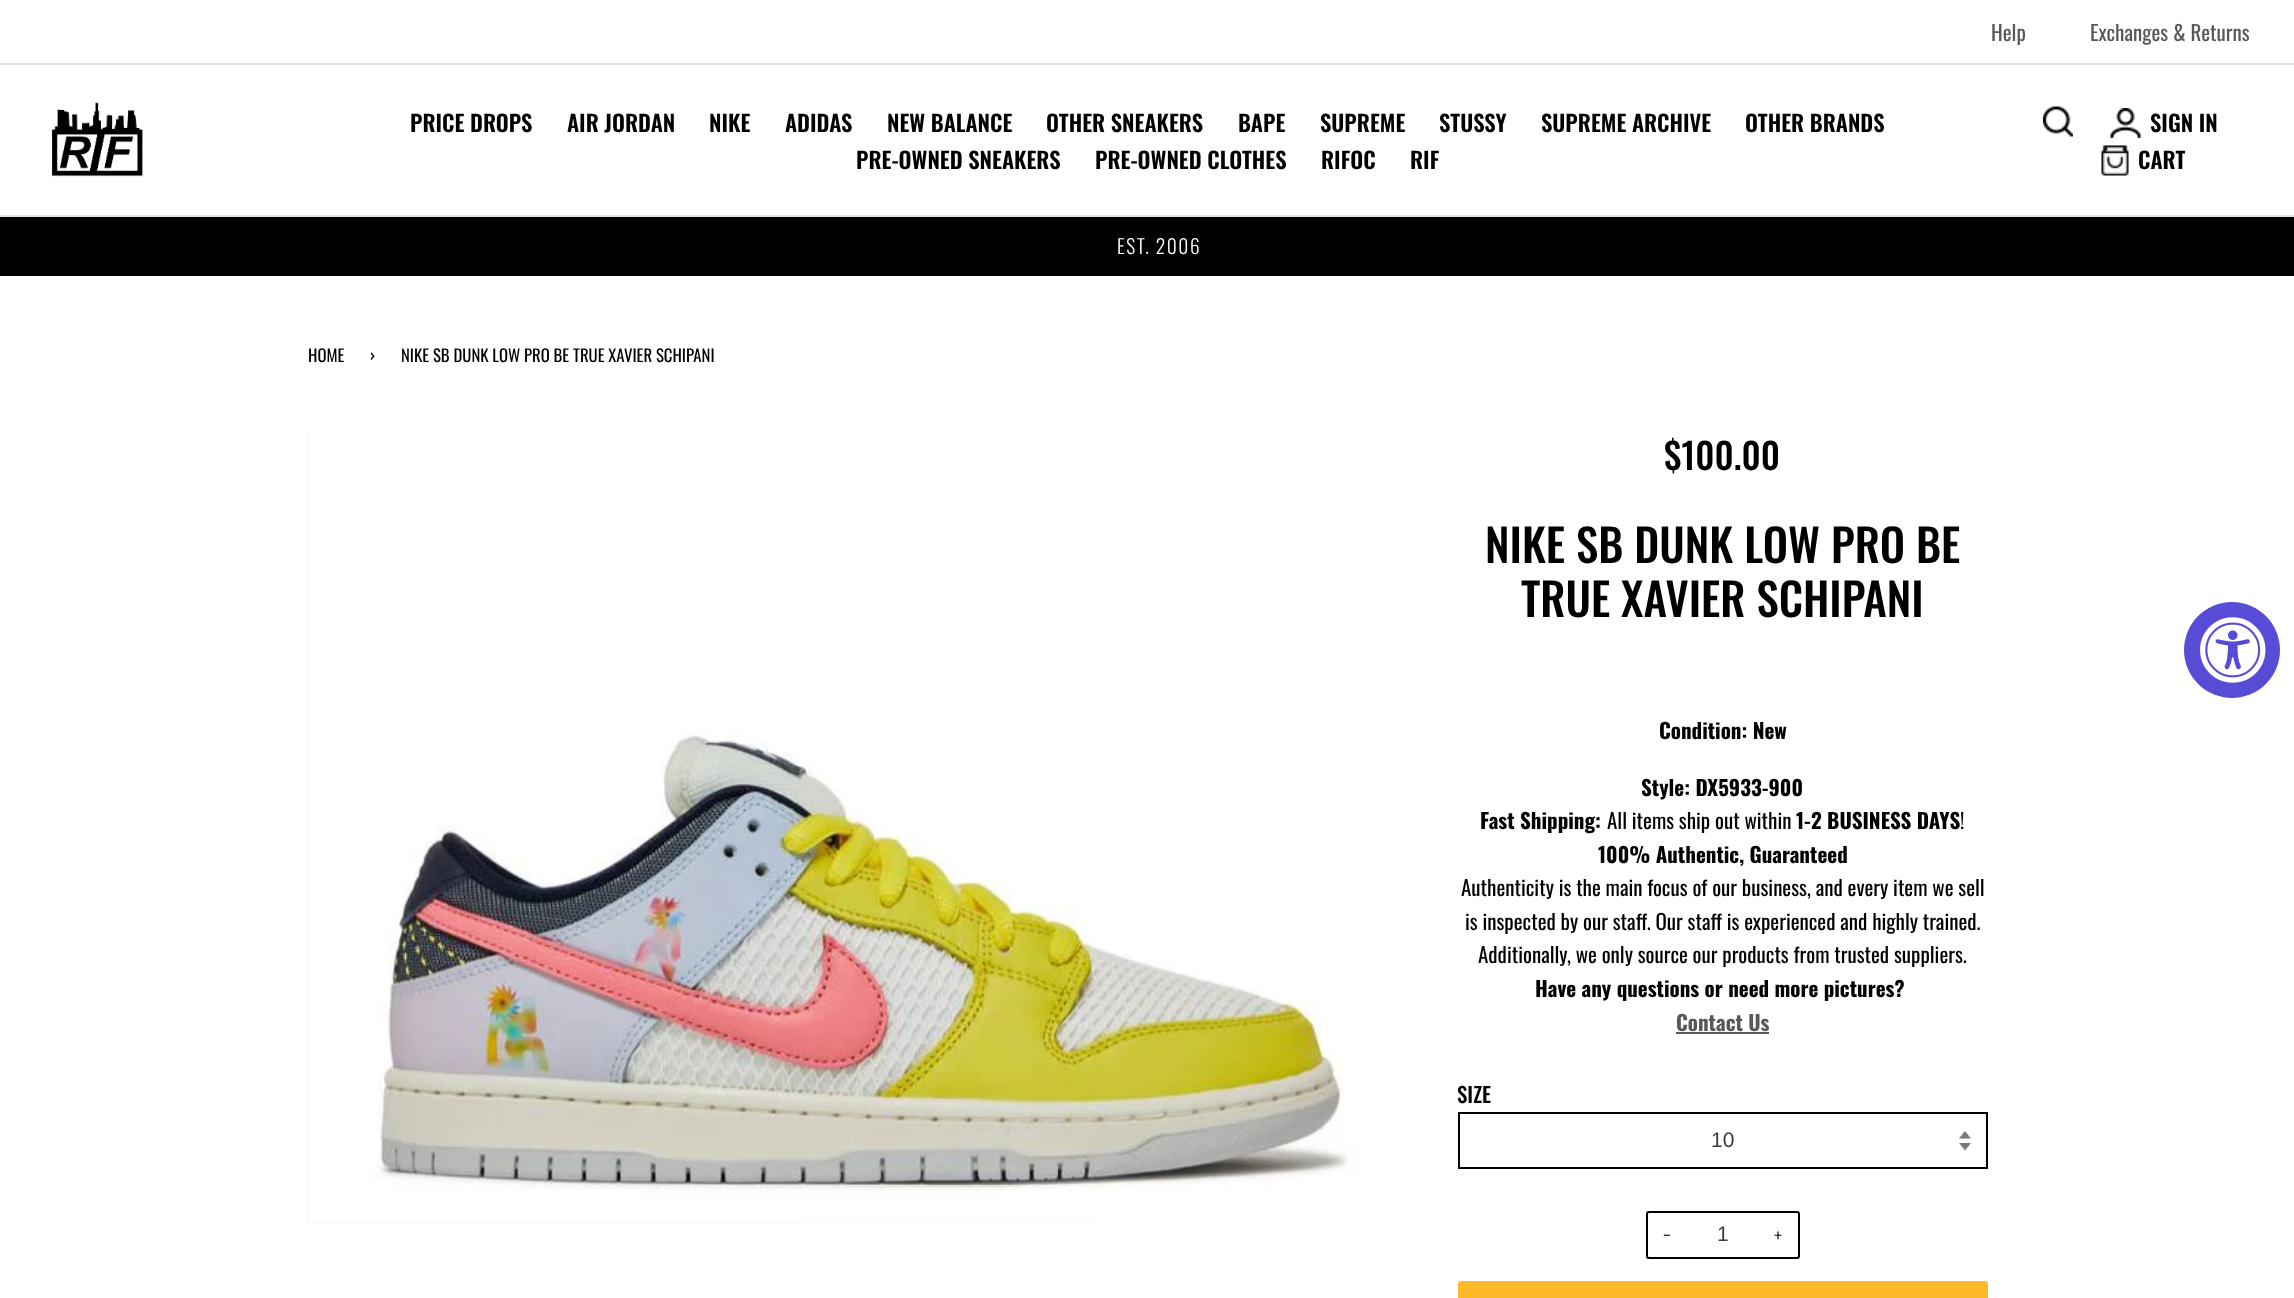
async function draw(canvas) {
	canvas.width = 2294;
	canvas.height = 1298;
	const c = canvas.getContext('2d');
	c.miterLimit = 4;
	c.fontKerning = 'normal';
	async function loadImage(src) {
		const img = new Image();
		img.src = src;
		await img.decode();
		return img;
	}

	c.fillStyle = '#fff';
	c.fillRect(0, 0, 2294, 1298);
	c.fillStyle = '#e2e2e2';
	c.fillRect(0, 63, 2294, 2);
	c.font = '21px Oswald';
	c.fillStyle = '#585858';
	c.fillText('Help', 1991, 41);
	c.fillText('Exchanges & Returns', 2090, 41);
	c.fillStyle = '#e3e3e3';
	c.fillRect(0, 215, 2294, 2);
	c.drawImage(await loadImage('img1.png'), 51, 102, 92, 75);
	c.font = '600 22.5px Oswald';
	c.fillStyle = '#000';
	for (const [text, x, y] of [
		['PRICE DROPS', 410, 132],
		['AIR JORDAN', 567, 132],
		['NIKE', 709, 132],
		['ADIDAS', 785, 132],
		['NEW BALANCE', 887, 132],
		['OTHER SNEAKERS', 1046, 132],
		['BAPE', 1238, 132],
		['SUPREME', 1320, 132],
		['STUSSY', 1439, 132],
		['SUPREME ARCHIVE', 1541, 132],
		['OTHER BRANDS', 1745, 132],
		['PRE-OWNED SNEAKERS', 856, 169],
		['PRE-OWNED CLOTHES', 1095, 169],
		['RIFOC', 1321, 169],
		['RIF', 1410, 169],
	]) {
		c.fillText(text, x, y);
	}
	c.drawImage(await loadImage('img2.png'), 2043, 106, 30, 31);
	c.drawImage(await loadImage('img3.png'), 2110, 108, 31, 30);
	c.fillText('SIGN IN', 2150, 132);
	c.drawImage(await loadImage('img4.png'), 2101, 145, 28, 31);
	c.fillText('CART', 2138, 169);
	c.fillRect(0, 217, 2294, 59);
	c.letterSpacing = '1.5px';
	c.font = '300 19.5px Oswald';
	c.fillStyle = '#fff';
	c.fillText('EST. 2006', 1117, 254);
	c.letterSpacing = '0px';
	c.font = '16.75px Oswald';
	c.fillStyle = '#000';
	for (const [text, x, y] of [
		['HOME', 308, 362],
		['›', 370, 362],
		['NIKE SB DUNK LOW PRO BE TRUE XAVIER SCHIPANI', 401, 362],
	]) {
		c.fillText(text, x, y);
	}
	c.drawImage(await loadImage('img5.png'), 307, 435, 1106, 788);
	c.drawImage(await loadImage('img6.png'), 308, 435, 1105, 788);
	c.font = '500 36px Oswald';
	c.fillText('$100.00', 1664, 470);
	c.font = '500 45px Oswald';
	c.fillText('NIKE SB DUNK LOW PRO BE', 1485, 563);
	c.fillText('TRUE XAVIER SCHIPANI', 1521, 617);
	c.font = 'bold 21px Oswald';
	for (const [text, x, y] of [
		['Condition: New', 1659, 739],
		['Style: DX5933-900', 1641, 796],
		['Fast Shipping:', 1480, 829],
	]) {
		c.fillText(text, x, y);
	}
	c.font = '21px Oswald';
	c.fillText('All items ship out within', 1607, 829);
	c.font = 'bold 21px Oswald';
	c.fillText('1-2 BUSINESS DAYS', 1796, 829);
	c.font = '21px Oswald';
	c.fillText('!', 1960, 829);
	c.font = 'bold 21px Oswald';
	c.fillText('100% Authentic, Guaranteed', 1598, 863);
	c.font = '21px Oswald';
	for (const [text, x, y] of [
		['Authenticity is the main focus of our business, and every item we sell', 1461, 896],
		['is inspected by our staff. Our staff is experienced and highly trained.', 1465, 930],
		['Additionally, we only source our products from trusted suppliers.', 1478, 963],
	]) {
		c.fillText(text, x, y);
	}
	c.font = 'bold 21px Oswald';
	c.fillText('Have any questions or need more pictures?', 1535, 997);
	c.fillStyle = '#585858';
	c.fillText('Contact Us', 1676, 1031);
	c.fillRect(1676, 1032, 93, 2);
	c.font = '500 21px Oswald';
	c.fillStyle = '#000';
	c.fillText('SIZE', 1457, 1103);
	c.drawImage(await loadImage('img7.png'), 1959, 1131, 12, 20);
	c.strokeStyle = '#000';
	c.lineWidth = 2;
	c.strokeRect(1459, 1113, 528, 55);
	c.font = '21px Liberation Sans';
	c.fillStyle = '#3c3c3c';
	c.fillText('10', 1711, 1147);
	c.beginPath();
	c.roundRect(1647, 1212, 152, 46, 2);
	c.stroke();
	c.font = '300 21px Oswald';
	c.fillStyle = '#000';
	c.fillText('−', 1663, 1244);
	c.font = '21px Liberation Sans';
	c.fillStyle = '#3c3c3c';
	c.fillText('1', 1717, 1241);
	c.font = '300 21px Oswald';
	c.fillStyle = '#000';
	c.fillText('+', 1774, 1244);
	c.fillStyle = '#fdb928';
	c.beginPath();
	c.roundRect(1458, 1281, 530, 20, 3);
	c.fill();
	c.fillStyle = '#574cd5';
	c.beginPath();
	c.arc(2232, 650, 48, 0, 2 * Math.PI);
	c.fill();
	c.drawImage(await loadImage('img8.png'), 2200, 617, 66, 66);
}

draw(document.querySelector('canvas'));
